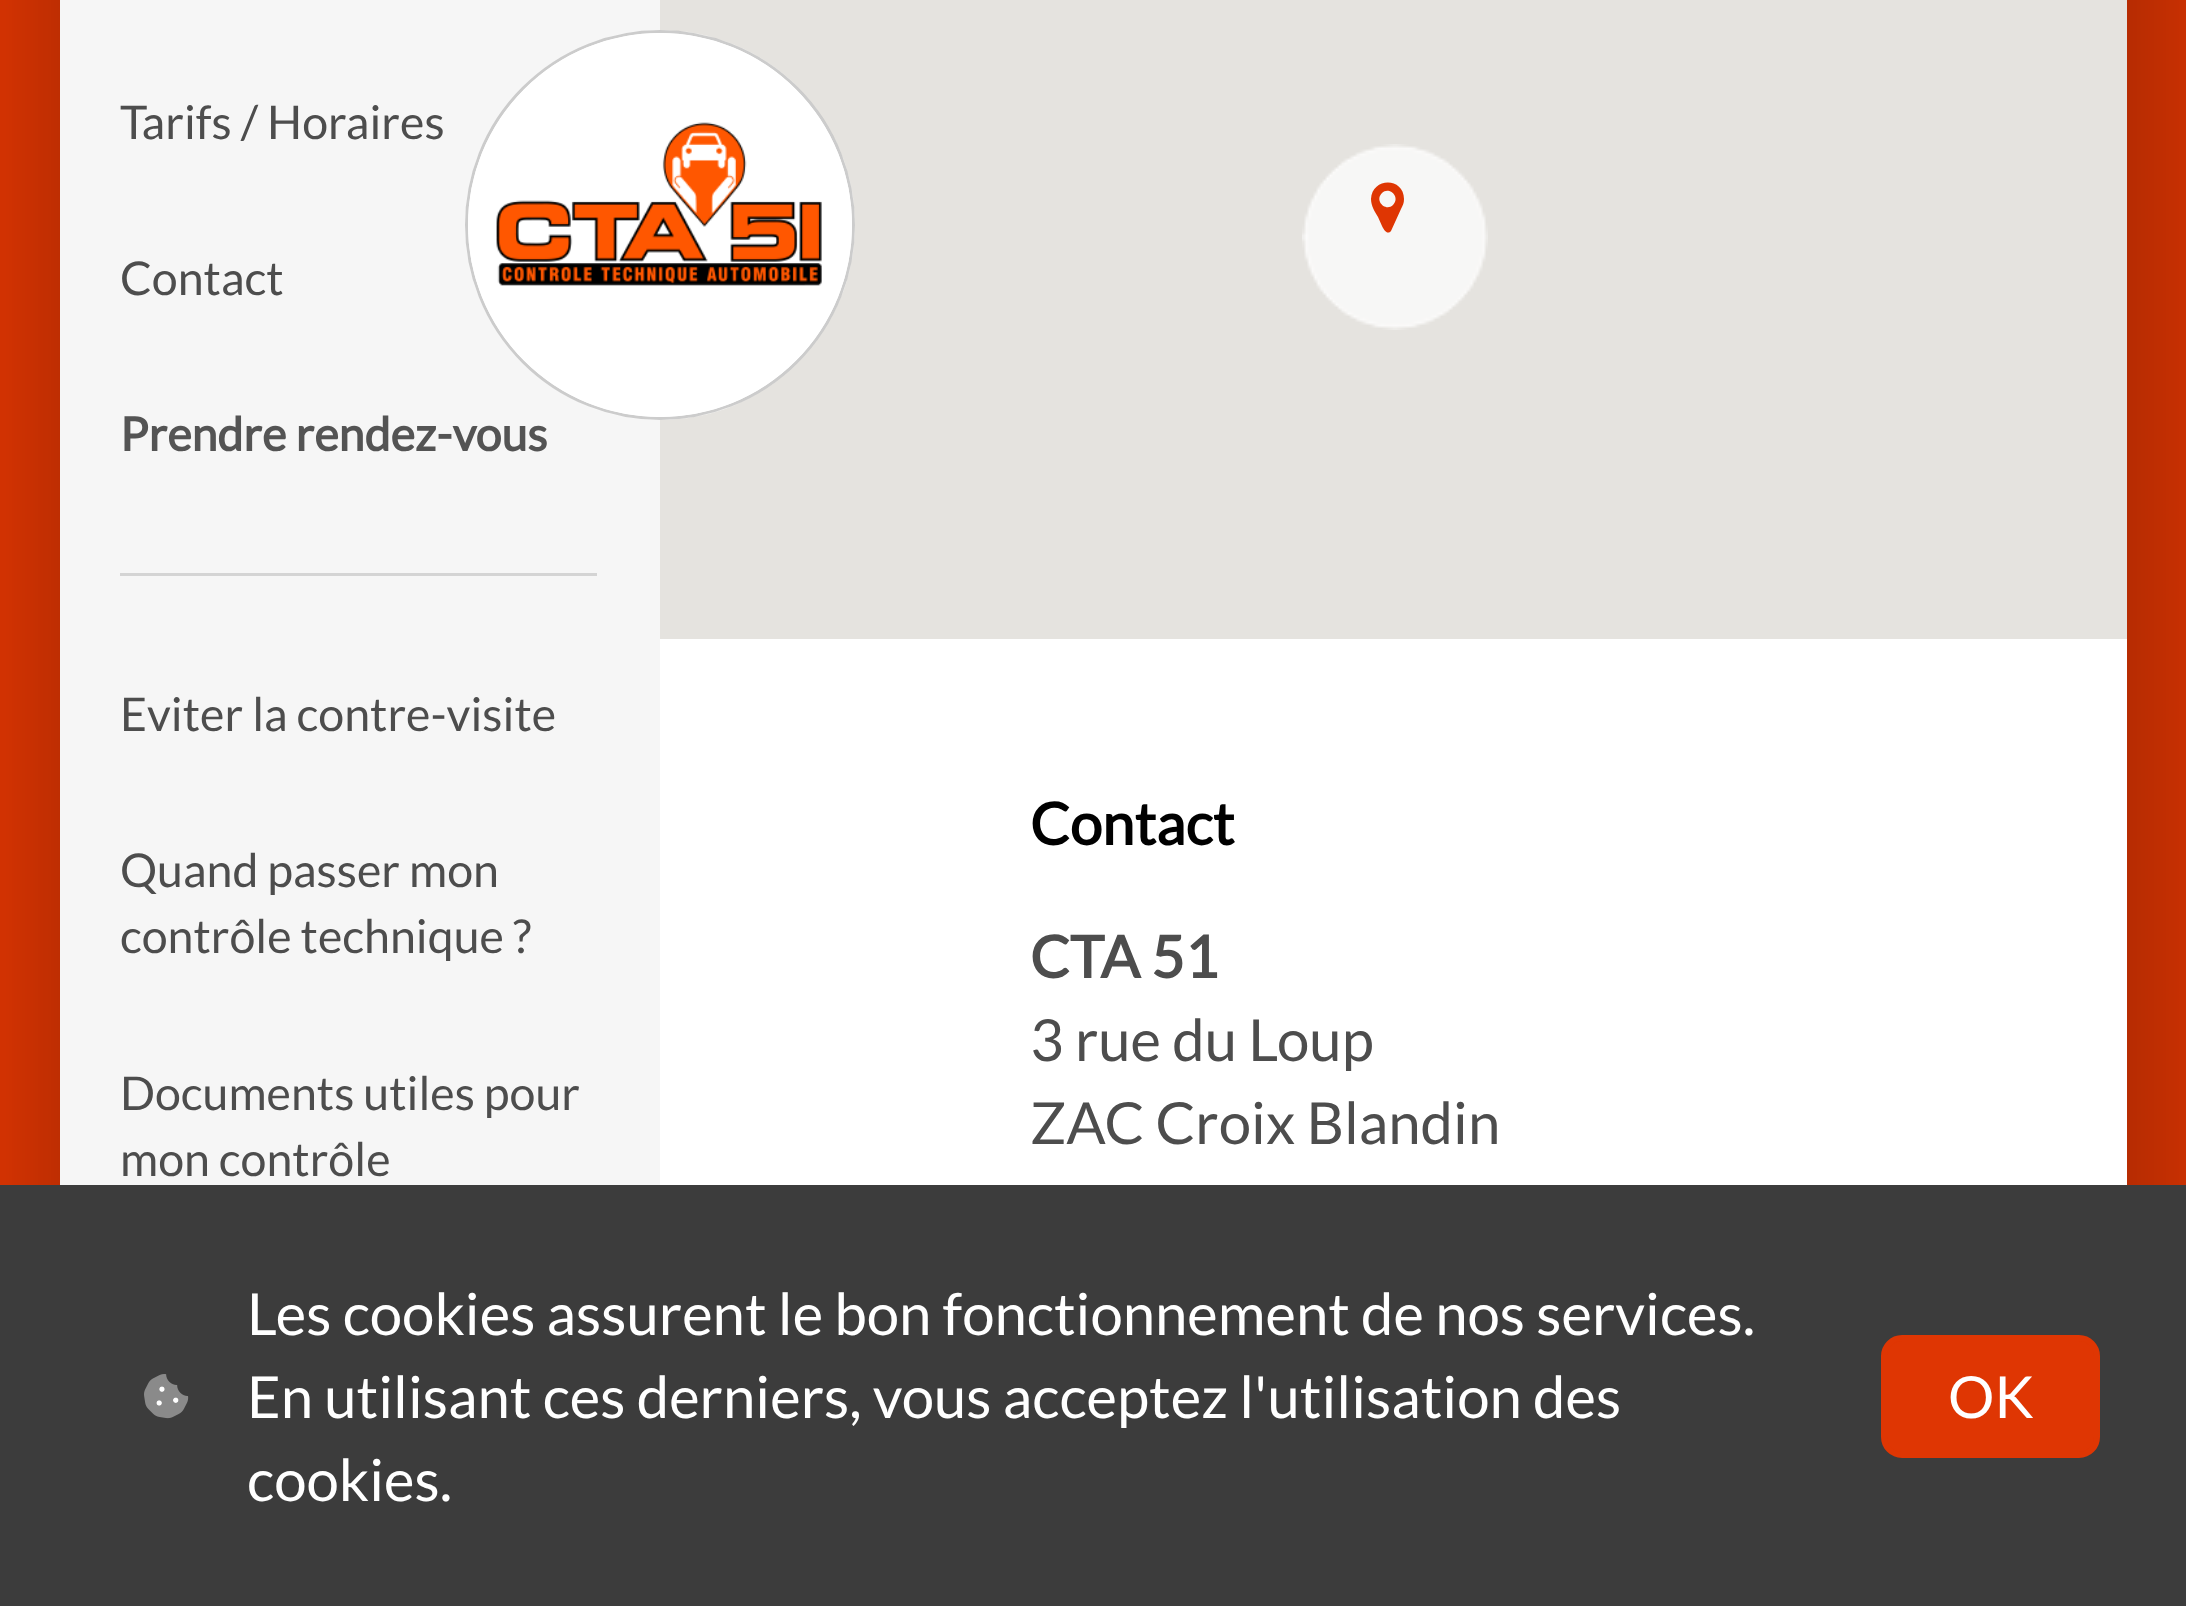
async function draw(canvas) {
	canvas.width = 2186;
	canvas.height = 1606;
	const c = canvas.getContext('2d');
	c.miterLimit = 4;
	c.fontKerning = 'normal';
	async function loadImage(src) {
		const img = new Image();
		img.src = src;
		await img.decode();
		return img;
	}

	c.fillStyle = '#df3603';
	c.fillRect(0, 0, 2186, 1606);
	c.fillStyle = '#00000033';
	c.filter = 'blur(52.5px)';
	c.beginPath();
	c.roundRect(30, -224, 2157, 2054, 66);
	c.fill();
	c.filter = 'none';
	c.fillStyle = '#f6f6f6';
	c.fillRect(60, 0, 600, 1185);
	c.font = 'bold 46.5px Lato';
	c.fillStyle = '#545454';
	c.fillText('Prendre rendez-vous', 120, 451);
	c.fillStyle = '#e5e3df';
	c.fillRect(660, 0, 1467, 639);
	c.fillStyle = '#fff';
	c.beginPath();
	c.arc(660, 225, 195, 0, 2 * Math.PI);
	c.fill();
	c.beginPath();
	c.arc(660, 225, 193.5, 0, 2 * Math.PI);
	c.strokeStyle = '#00000033';
	c.lineWidth = 3;
	c.stroke();
	c.drawImage(await loadImage('img1.png'), 468, 33, 384, 384);
	c.font = '46.5px Lato';
	c.fillStyle = '#4d4d4d';
	c.fillText('Tarifs / Horaires', 120, 139);
	c.fillText('Contact', 120, 295);
	c.fillStyle = '#d4d4d4';
	c.fillRect(120, 573, 477, 3);
	c.fillStyle = '#4d4d4d';
	for (const [text, x, y] of [
		['Eviter la contre-visite', 120, 731],
		['Quand passer mon', 120, 887],
		['contrôle technique ?', 120, 953],
		['Documents utiles pour', 120, 1110],
		['mon contrôle', 120, 1176],
	]) {
		c.fillText(text, x, y);
	}
	c.fillStyle = '#fff';
	c.fillRect(660, 639, 1467, 546);
	c.drawImage(await loadImage('img2.png'), 1302, 144, 186, 186);
	c.fillStyle = '#df3603';
	c.beginPath();
	c.moveTo(1393, 205);
	c.bezierCurveTo(1401, 197, 1389, 186, 1382, 193);
	c.bezierCurveTo(1374, 201, 1386, 212, 1393, 205);
	c.closePath();
	c.moveTo(1404, 199);
	c.bezierCurveTo(1404, 203, 1403, 205, 1401, 209);
	c.lineTo(1391, 231);
	c.bezierCurveTo(1387, 236, 1383, 228, 1382, 226);
	c.lineTo(1378, 217);
	c.bezierCurveTo(1375, 212, 1371, 206, 1371, 199);
	c.bezierCurveTo(1372, 177, 1404, 177, 1404, 199);
	c.closePath();
	c.fill();
	c.font = 'bold 58.1px Lato';
	c.fillStyle = '#000';
	c.fillText('Contact', 1030, 845);
	c.fillStyle = '#4d4d4d';
	c.fillText('CTA 51', 1030, 978);
	c.font = '58.1px Lato';
	c.fillText('3 rue du Loup', 1030, 1061);
	c.fillText('ZAC Croix Blandin', 1030, 1144);
	c.fillStyle = '#3c3c3c';
	c.fillRect(0, 1185, 2186, 421);
	c.drawImage(await loadImage('img3.png'), 144, 1374, 45, 45);
	c.fillStyle = '#fff';
	for (const [text, x, y] of [
		['Les cookies assurent le bon fonctionnement de nos services.', 247, 1335],
		['En utilisant ces derniers, vous acceptez l\'utilisation des', 247, 1418],
		['cookies.', 247, 1501],
	]) {
		c.fillText(text, x, y);
	}
	c.fillStyle = '#df3603';
	c.beginPath();
	c.roundRect(1884, 1338, 213, 117, 18);
	c.fill();
	c.strokeStyle = '#df3603';
	c.lineWidth = 6;
	c.stroke();
	c.fillStyle = '#fff';
	c.fillText('OK', 1948, 1418);
}

draw(document.querySelector('canvas'));
